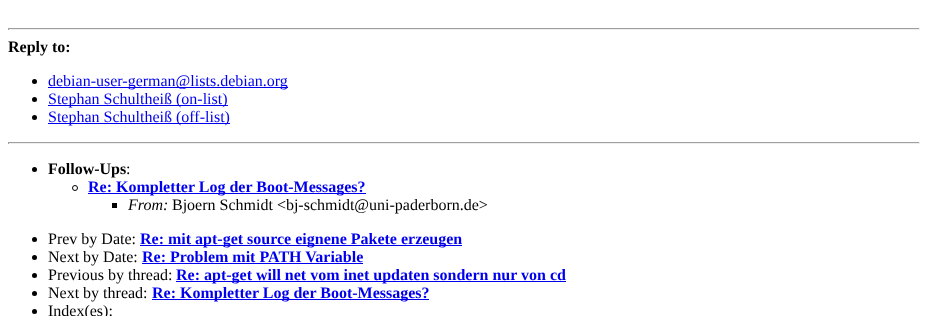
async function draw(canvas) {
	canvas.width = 928;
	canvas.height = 316;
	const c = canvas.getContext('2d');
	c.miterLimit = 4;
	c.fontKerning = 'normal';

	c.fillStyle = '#fff';
	c.fillRect(0, 0, 928, 316);
	for (const [x, y, w, h, color] of [
		[8, 28, 912, 1, '#9f9f9f'],
		[919, 28, 1, 2, '#eee'],
		[8, 29, 912, 1, '#eee'],
		[8, 28, 1, 2, '#9f9f9f'],
	]) {
		c.fillStyle = color;
		c.fillRect(x, y, w, h);
	}
	c.font = 'bold 16px Liberation Serif';
	c.fillStyle = '#000';
	c.fillText('Reply to:', 8, 52);
	c.beginPath();
	c.arc(34.5, 81.5, 2.5, 0, 2 * Math.PI);
	c.fill();
	c.fillStyle = '#00e';
	c.fillRect(48, 87, 240, 1);
	c.font = '16px Liberation Serif';
	c.fillText('debian-user-german@lists.debian.org', 48, 86);
	c.fillStyle = '#000';
	c.beginPath();
	c.arc(34.5, 99.5, 2.5, 0, 2 * Math.PI);
	c.fill();
	c.fillStyle = '#00e';
	c.fillRect(48, 105, 180, 1);
	c.fillText('Stephan Schultheiß (on-list)', 48, 104);
	c.fillStyle = '#000';
	c.beginPath();
	c.arc(34.5, 117.5, 2.5, 0, 2 * Math.PI);
	c.fill();
	c.fillStyle = '#00e';
	c.fillRect(48, 123, 182, 1);
	c.fillText('Stephan Schultheiß (off-list)', 48, 122);
	for (const [x, y, w, h, color] of [
		[8, 142, 912, 1, '#9f9f9f'],
		[919, 142, 1, 2, '#eee'],
		[8, 143, 912, 1, '#eee'],
		[8, 142, 1, 2, '#9f9f9f'],
	]) {
		c.fillStyle = color;
		c.fillRect(x, y, w, h);
	}
	c.fillStyle = '#000';
	c.beginPath();
	c.arc(34.5, 169.5, 2.5, 0, 2 * Math.PI);
	c.fill();
	c.font = 'bold 16px Liberation Serif';
	c.fillText('Follow-Ups', 48, 174);
	c.font = '16px Liberation Serif';
	c.fillText(':', 126, 174);
	c.beginPath();
	c.arc(75, 188, 2.5, 0, 2 * Math.PI);
	c.strokeStyle = '#000';
	c.stroke();
	c.fillStyle = '#00e';
	c.fillRect(88, 193, 278, 1);
	c.font = 'bold 16px Liberation Serif';
	c.fillText('Re: Kompletter Log der Boot-Messages?', 88, 192);
	c.fillStyle = '#000';
	c.fillRect(112, 203, 5, 5);
	c.font = 'italic 16px Liberation Serif';
	c.fillText('From:', 128, 210);
	c.font = '16px Liberation Serif';
	c.fillText('Bjoern Schmidt <bj-schmidt@uni-paderborn.de>', 172, 210);
	c.beginPath();
	c.arc(34.5, 239.5, 2.5, 0, 2 * Math.PI);
	c.fill();
	c.fillText('Prev by Date:', 48, 244);
	c.fillStyle = '#00e';
	c.fillRect(140, 245, 322, 1);
	c.font = 'bold 16px Liberation Serif';
	c.fillText('Re: mit apt-get source eignene Pakete erzeugen', 140, 244);
	c.fillStyle = '#000';
	c.beginPath();
	c.arc(34.5, 257.5, 2.5, 0, 2 * Math.PI);
	c.fill();
	c.font = '16px Liberation Serif';
	c.fillText('Next by Date:', 48, 262);
	c.font = 'bold 16px Liberation Serif';
	c.fillStyle = '#00e';
	c.fillText('Re: Problem mit PATH Variable', 142, 262);
	c.fillRect(142, 263, 221, 1);
	c.fillStyle = '#000';
	c.beginPath();
	c.arc(34.5, 275.5, 2.5, 0, 2 * Math.PI);
	c.fill();
	c.font = '16px Liberation Serif';
	c.fillText('Previous by thread:', 48, 280);
	c.fillStyle = '#00e';
	c.fillRect(176, 281, 390, 1);
	c.font = 'bold 16px Liberation Serif';
	c.fillText('Re: apt-get will net vom inet updaten sondern nur von cd', 176, 280);
	c.fillStyle = '#000';
	c.beginPath();
	c.arc(34.5, 293.5, 2.5, 0, 2 * Math.PI);
	c.fill();
	c.font = '16px Liberation Serif';
	c.fillText('Next by thread:', 48, 298);
	c.fillStyle = '#00e';
	c.fillRect(152, 299, 277, 1);
	c.font = 'bold 16px Liberation Serif';
	c.fillText('Re: Kompletter Log der Boot-Messages?', 152, 298);
	c.fillStyle = '#000';
	c.beginPath();
	c.arc(34.5, 311.5, 2.5, 0, 2 * Math.PI);
	c.fill();
	c.font = '16px Liberation Serif';
	c.fillText('Index(es):', 48, 316);
}

draw(document.querySelector('canvas'));
